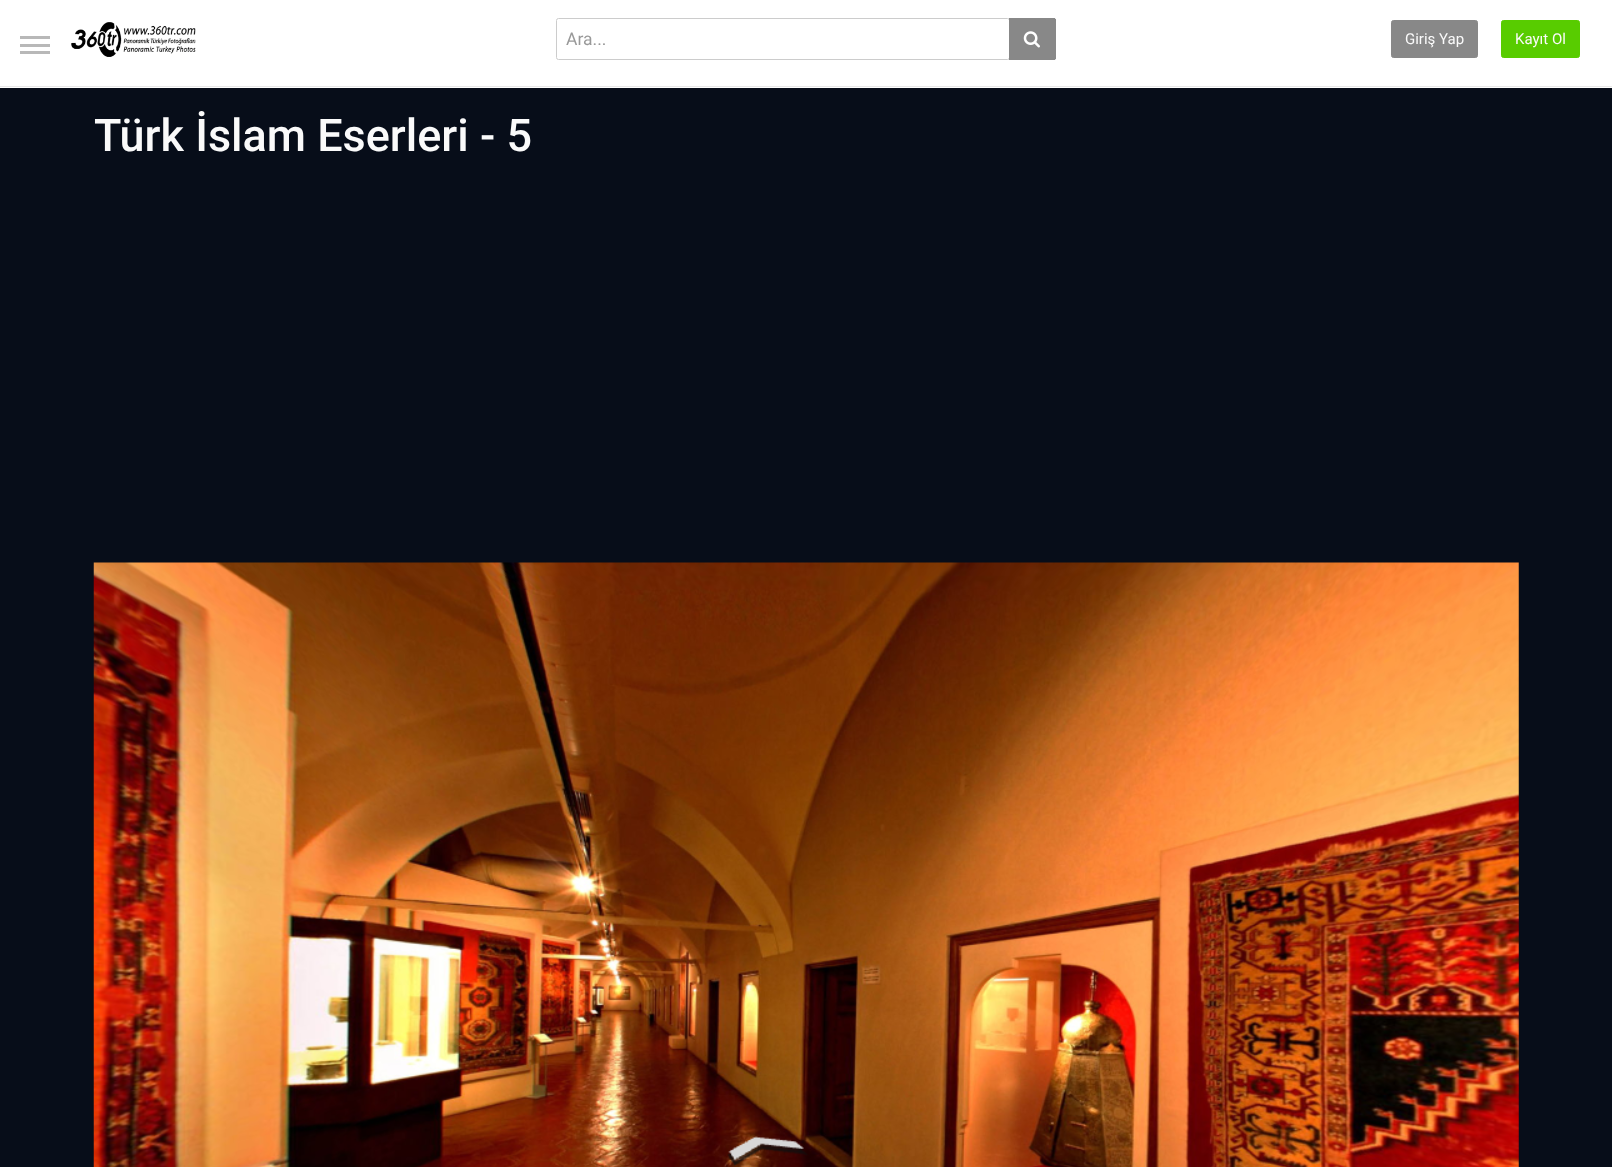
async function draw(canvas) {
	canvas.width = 1612;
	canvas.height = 1167;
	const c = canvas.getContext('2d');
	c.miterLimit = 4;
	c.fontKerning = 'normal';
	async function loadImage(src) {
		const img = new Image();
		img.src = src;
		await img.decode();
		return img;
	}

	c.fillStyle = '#070d19';
	c.fillRect(0, 0, 1612, 1167);
	for (const [x, y, w, h, color] of [
		[0, 0, 1612, 88, '#fff'],
		[0, 86, 1612, 1, '#e8e8e8'],
		[20, 44, 30, 3, '#b8b8b8'],
		[20, 36, 30, 3, '#b8b8b8'],
		[20, 51, 30, 3, '#b8b8b8'],
	]) {
		c.fillStyle = color;
		c.fillRect(x, y, w, h);
	}
	c.drawImage(await loadImage('img1.png'), 71, 22, 125, 35);
	c.beginPath();
	c.roundRect(556.5, 18.5, 453, 41, 2);
	c.strokeStyle = '#ccc';
	c.stroke();
	c.font = '17.5px Roboto';
	c.fillStyle = '#999';
	c.fillText('Ara...', 566, 45);
	c.fillStyle = '#888';
	c.beginPath();
	c.roundRect(1009, 18, 47, 42, [0, 2.5, 2.5, 0]);
	c.fill();
	for (const [x, y, w, h, color] of [
		[1053, 18, 2, 1, '#888'],
		[1055, 19, 1, 40, '#888'],
		[1053, 59, 2, 1, '#888'],
	]) {
		c.fillStyle = color;
		c.fillRect(x, y, w, h);
	}
	c.drawImage(await loadImage('img2.png'), 1023, 31, 17, 17);
	c.beginPath();
	c.roundRect(1391.5, 20.5, 86, 37, 2);
	c.fill();
	c.strokeStyle = '#888';
	c.stroke();
	c.font = '15px Roboto';
	c.fillStyle = '#fafafa';
	c.fillText('Giriş Yap', 1405, 44);
	c.fillStyle = '#58cc00';
	c.beginPath();
	c.roundRect(1501.5, 20.5, 78, 37, 2);
	c.fill();
	c.strokeStyle = '#58cc00';
	c.stroke();
	c.fillStyle = '#fafafa';
	c.fillText('Kayıt Ol', 1515, 44);
	c.font = '500 45px Roboto';
	c.fillText('Türk İslam Eserleri - 5', 94, 151);
	c.drawImage(await loadImage('img3.png'), 93, 562, 1426, 605);
}

draw(document.querySelector('canvas'));
